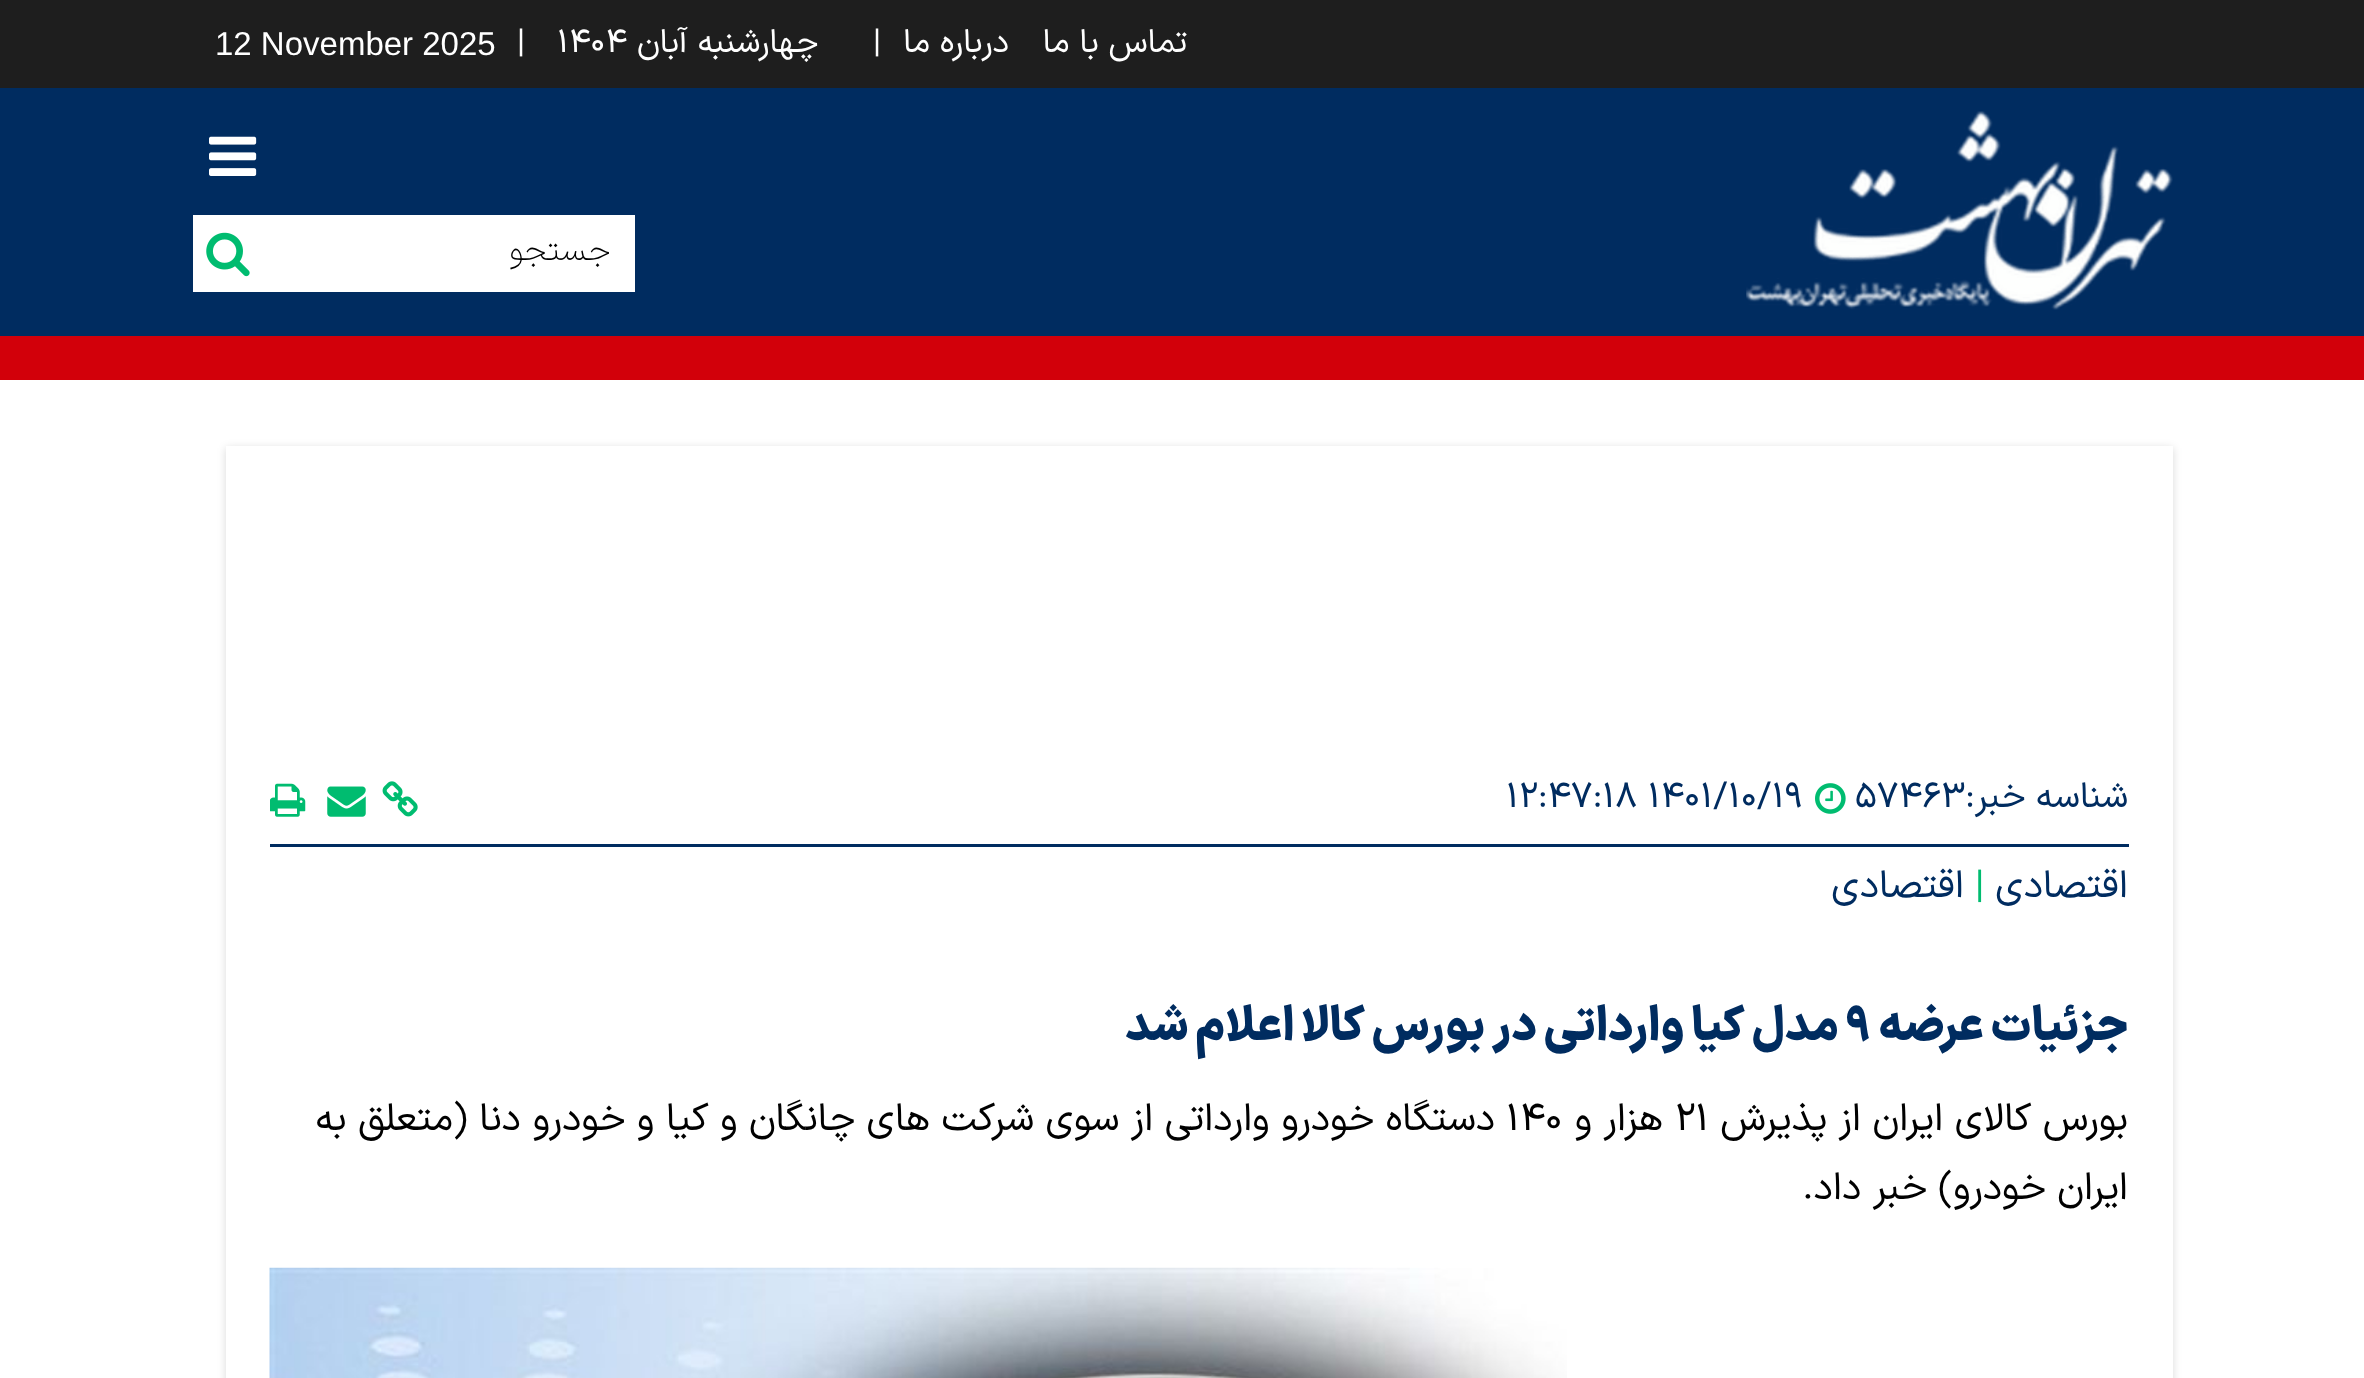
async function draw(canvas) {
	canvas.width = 2364;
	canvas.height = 1378;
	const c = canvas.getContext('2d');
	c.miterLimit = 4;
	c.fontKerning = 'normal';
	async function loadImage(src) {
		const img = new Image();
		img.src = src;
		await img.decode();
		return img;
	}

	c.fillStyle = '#fff';
	c.fillRect(0, 0, 2364, 1378);
	c.fillStyle = '#1e1e1e';
	c.fillRect(0, 0, 2364, 88);
	c.direction = 'rtl';
	c.font = '33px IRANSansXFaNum';
	c.fillStyle = '#fff';
	c.fillText('تماس با ما', 1187, 52);
	c.fillText('درباره ما', 1009, 52);
	c.direction = 'ltr';
	c.fillText('|', 873, 52);
	c.direction = 'rtl';
	c.fillText('چهارشنبه آبان', 818, 52);
	c.direction = 'ltr';
	c.fillText('1404', 557, 52);
	c.fillText('|', 517, 52);
	c.font = '33px Liberation Sans';
	c.fillText('12 November 2025', 215, 55);
	c.fillStyle = '#002c60';
	c.fillRect(0, 88, 2364, 248);
	c.drawImage(await loadImage('img1.png'), 1746, 111, 427, 199);
	c.drawImage(await loadImage('img2.png'), 209, 136, 48, 40);
	c.fillStyle = '#fff';
	c.fillRect(193, 215, 442, 77);
	c.direction = 'rtl';
	c.font = '200 33px IRANSansXFaNum';
	c.fillStyle = '#000';
	c.fillText('جستجو', 610, 260);
	c.drawImage(await loadImage('img3.png'), 206, 232, 44, 45);
	c.fillStyle = '#d2000a';
	c.fillRect(0, 336, 2364, 44);
	c.save();
	c.beginPath();
	c.moveTo(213, 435);
	c.lineTo(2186, 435);
	c.lineTo(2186, 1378);
	c.lineTo(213, 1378);
	c.closePath();
	c.moveTo(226, 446);
	c.lineTo(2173, 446);
	c.lineTo(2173, 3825);
	c.lineTo(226, 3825);
	c.closePath();
	c.clip('evenodd');
	c.fillStyle = '#06060626';
	c.filter = 'blur(4px)';
	c.beginPath();
	c.rect(226, 448, 1947, 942);
	c.fill();
	c.filter = 'none';
	c.restore();
	c.fillStyle = '#002c60';
	c.fillRect(270, 844, 1859, 3);
	c.font = '35.75px IRANSansXFaNum';
	c.fillText('شناسه خبر:', 2128, 807);
	c.direction = 'ltr';
	c.fillText('۵۷۴۶۳', 1855, 807);
	c.drawImage(await loadImage('img4.png'), 1815, 783, 31, 31);
	c.fillText('۱۲:۴۷:۱۸ ۱۴۰۱/۱۰/۱۹', 1506, 807);
	c.drawImage(await loadImage('img5.png'), 382, 781, 36, 36);
	c.drawImage(await loadImage('img6.png'), 327, 786, 39, 31);
	c.drawImage(await loadImage('img7.png'), 270, 783, 36, 34);
	c.direction = 'rtl';
	c.font = '38.5px IRANSansXFaNum';
	c.fillText('اقتصادی', 2128, 897);
	c.direction = 'ltr';
	c.fillStyle = '#00bc70';
	c.fillText('|', 1975, 897);
	c.direction = 'rtl';
	c.fillStyle = '#002c60';
	c.fillText('اقتصادی', 1964, 897);
	c.font = '900 46.75px IRANSansXFaNum';
	c.fillText('جزئیات عرضه', 2128, 1040);
	c.direction = 'ltr';
	c.fillText('9', 1845, 1040);
	c.direction = 'rtl';
	c.fillText('مدل کیا وارداتی در بورس کالا اعلام شد', 1839, 1040);
	c.font = '38.5px IRANSansXFaNum';
	c.fillStyle = '#000';
	c.fillText('بورس کالای ایران از پذیرش', 2128, 1130);
	c.direction = 'ltr';
	c.fillText('۲۱', 1675, 1130);
	c.direction = 'rtl';
	c.fillText('هزار و', 1663, 1130);
	c.direction = 'ltr';
	c.fillText('۱۴۰', 1506, 1130);
	c.direction = 'rtl';
	c.fillText('دستگاه خودرو وارداتی از سوی شرکت های چانگان و کیا و خودرو دنا (متعلق به', 1495, 1130);
	c.fillText('ایران خودرو) خبر داد.', 2128, 1199);
	c.drawImage(await loadImage('img8.png'), 269, 1267, 1298, 111);
}

draw(document.querySelector('canvas'));
